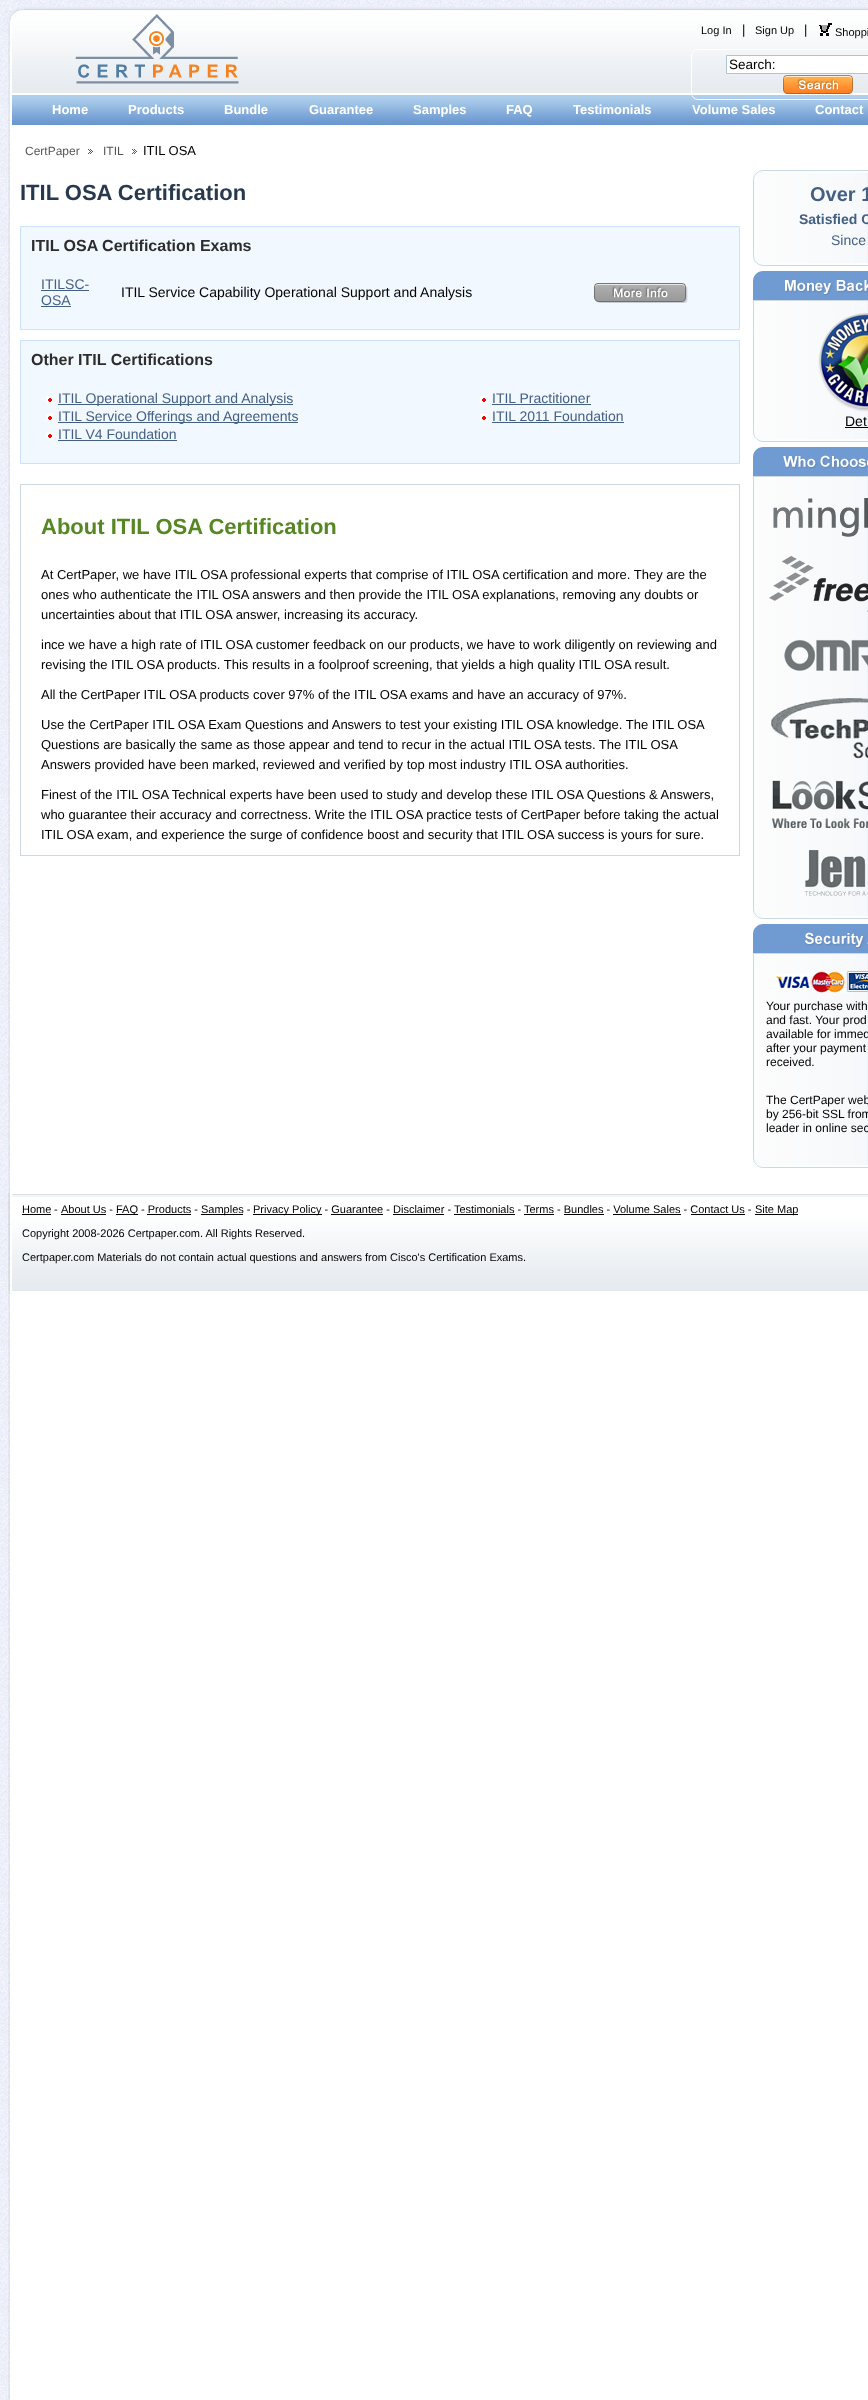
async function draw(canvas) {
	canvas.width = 868;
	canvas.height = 2400;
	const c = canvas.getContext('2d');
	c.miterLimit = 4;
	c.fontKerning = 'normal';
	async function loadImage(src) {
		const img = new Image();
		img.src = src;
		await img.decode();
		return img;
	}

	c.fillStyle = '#fff';
	c.fillRect(0, 0, 868, 2400);
	c.drawImage(await loadImage('img1.png'), 0, 0, 10, 2400);
	c.drawImage(await loadImage('img2.png'), 8, 24, 860, 2376);
	c.drawImage(await loadImage('img3.png'), 4, 0, 864, 7);
	c.drawImage(await loadImage('img4.png'), 12, 7, 856, 86);
	c.drawImage(await loadImage('img5.png'), 7, 7, 17, 17);
	c.drawImage(await loadImage('img6.png'), 75, 14, 164, 70);
	c.font = '11px Liberation Sans';
	c.fillStyle = '#000';
	c.fillText('Log In', 701, 34);
	c.font = '13px Liberation Sans';
	c.fillText('|', 742, 34);
	c.font = '11px Liberation Sans';
	c.fillText('Sign Up', 755, 34);
	c.font = '13px Liberation Sans';
	c.fillText('|', 804, 34);
	c.drawImage(await loadImage('img7.png'), 819, 23, 13, 13);
	c.font = '11px Liberation Sans';
	c.fillText('Shoppi', 835, 36);
	c.drawImage(await loadImage('img9.png'), 12, 95, 856, 30);
	c.beginPath();
	c.roundRect(691.5, 49.5, 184, 50, 6.5);
	c.strokeStyle = '#fff';
	c.stroke();
	c.fillStyle = '#fff';
	c.beginPath();
	c.rect(726.5, 55.5, 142, 18);
	c.fill();
	c.strokeStyle = '#afc4d3';
	c.stroke();
	c.font = '13.5px Liberation Sans';
	c.fillStyle = '#000';
	c.fillText('Search:', 729, 69);
	c.drawImage(await loadImage('img8.png'), 782, 74, 71, 20);
	c.font = 'bold 13px Liberation Sans';
	c.fillStyle = '#fff';
	for (const [text, x, y] of [
		['Home', 52, 114],
		['Products', 128, 114],
		['Bundle', 224, 114],
		['Guarantee', 309, 114],
		['Samples', 413, 114],
		['FAQ', 506, 114],
		['Testimonials', 573, 114],
		['Volume Sales', 692, 114],
		['Contact', 815, 114],
	]) {
		c.fillText(text, x, y);
	}
	c.font = '12px Liberation Sans';
	c.fillStyle = '#575656';
	c.fillText('CertPaper', 25, 155);
	c.drawImage(await loadImage('img10.png'), 88, 149, 5, 5);
	c.fillText('ITIL', 103, 155);
	c.drawImage(await loadImage('img10.png'), 132, 149, 5, 5);
	c.font = '13px Liberation Sans';
	c.fillStyle = '#000';
	c.fillText('ITIL OSA', 143, 155);
	c.font = 'bold 22px Liberation Sans';
	c.fillStyle = '#28394e';
	c.fillText('ITIL OSA Certification', 20, 200);
	c.fillStyle = '#f2f8ff';
	c.beginPath();
	c.rect(20.5, 226.5, 719, 103);
	c.fill();
	c.strokeStyle = '#cce1fd';
	c.stroke();
	c.font = 'bold 16px Liberation Sans';
	c.fillStyle = '#2d2d2d';
	c.fillText('ITIL OSA Certification Exams', 31, 251);
	c.font = '14px Liberation Sans';
	c.fillStyle = '#435f82';
	c.fillText('ITILSC-', 41, 289);
	c.fillRect(41, 290, 48, 1);
	c.fillText('OSA', 41, 305);
	c.fillRect(41, 306, 30, 1);
	c.fillStyle = '#000';
	c.fillText('ITIL Service Capability Operational Support and Analysis', 121, 297);
	c.drawImage(await loadImage('img11.png'), 594, 283, 94, 20);
	c.fillStyle = '#f2f8ff';
	c.beginPath();
	c.rect(20.5, 340.5, 719, 123);
	c.fill();
	c.stroke();
	c.font = 'bold 16px Liberation Sans';
	c.fillStyle = '#2d2d2d';
	c.fillText('Other ITIL Certifications', 31, 365);
	c.drawImage(await loadImage('img12.png'), 46, 396, 7, 7);
	c.fillStyle = '#435f82';
	c.fillRect(58, 404, 235, 1);
	c.font = '14px Liberation Sans';
	c.fillText('ITIL Operational Support and Analysis', 58, 403);
	c.drawImage(await loadImage('img12.png'), 480, 396, 7, 7);
	c.fillText('ITIL Practitioner', 492, 403);
	c.fillRect(492, 404, 99, 1);
	c.drawImage(await loadImage('img12.png'), 46, 414, 7, 7);
	c.fillRect(58, 422, 240, 1);
	c.fillText('ITIL Service Offerings and Agreements', 58, 421);
	c.drawImage(await loadImage('img12.png'), 480, 414, 7, 7);
	c.fillText('ITIL 2011 Foundation', 492, 421);
	c.fillRect(492, 422, 132, 1);
	c.drawImage(await loadImage('img12.png'), 46, 432, 7, 7);
	c.fillText('ITIL V4 Foundation', 58, 439);
	c.fillRect(58, 440, 119, 1);
	c.strokeStyle = '#ced8e1';
	c.strokeRect(20.5, 484.5, 719, 371);
	c.font = 'bold 22px Liberation Sans';
	c.fillStyle = '#558722';
	c.fillText('About ITIL OSA Certification', 41, 534);
	c.font = '13px Liberation Sans';
	c.fillStyle = '#000';
	for (const [text, x, y] of [
		['At CertPaper, we have ITIL OSA professional experts that comprise of ITIL OSA certification and more. They are the', 41, 579],
		['ones who authenticate the ITIL OSA answers and then provide the ITIL OSA explanations, removing any doubts or', 41, 599],
		['uncertainties about that ITIL OSA answer, increasing its accuracy.', 41, 619],
		['ince we have a high rate of ITIL OSA customer feedback on our products, we have to work diligently on reviewing and', 41, 649],
		['revising the ITIL OSA products. This results in a foolproof screening, that yields a high quality ITIL OSA result.', 41, 669],
		['All the CertPaper ITIL OSA products cover 97% of the ITIL OSA exams and have an accuracy of 97%.', 41, 699],
		['Use the CertPaper ITIL OSA Exam Questions and Answers to test your existing ITIL OSA knowledge. The ITIL OSA', 41, 729],
		['Questions are basically the same as those appear and tend to recur in the actual ITIL OSA tests. The ITIL OSA', 41, 749],
		['Answers provided have been marked, reviewed and verified by top most industry ITIL OSA authorities.', 41, 769],
		['Finest of the ITIL OSA Technical experts have been used to study and develop these ITIL OSA Questions & Answers,', 41, 799],
		['who guarantee their accuracy and correctness. Write the ITIL OSA practice tests of CertPaper before taking the actual', 41, 819],
		['ITIL OSA exam, and experience the surge of confidence boost and security that ITIL OSA success is yours for sure.', 41, 839],
	]) {
		c.fillText(text, x, y);
	}
	c.fillStyle = '#f9ffff';
	c.beginPath();
	c.roundRect(753.5, 170.5, 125, 95, 9.5);
	c.fill();
	c.stroke();
	c.fillStyle = '#f1f5f9';
	c.beginPath();
	c.roundRect(756, 173, 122, 90, 10);
	c.fill();
	c.drawImage(await loadImage('img13.png'), 756, 173, 111, 90);
	c.font = 'bold 20px Liberation Sans';
	c.fillStyle = '#435f82';
	c.fillText('Over 1', 810, 201);
	c.font = 'bold 14px Liberation Sans';
	c.fillText('Satisfied C', 799, 224);
	c.font = '14px Liberation Sans';
	c.fillText('Since', 831, 245);
	c.fillStyle = '#709bd2';
	c.beginPath();
	c.moveTo(763, 271);
	c.lineTo(868, 271);
	c.bezierCurveTo(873.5, 271, 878, 275.5, 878, 281);
	c.lineTo(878, 300);
	c.lineTo(753, 300);
	c.lineTo(753, 281);
	c.bezierCurveTo(753, 275.5, 757.5, 271, 763, 271);
	c.closePath();
	c.fill();
	c.drawImage(await loadImage('img14.png'), 785, 280, 83, 16);
	c.fillStyle = '#f9ffff';
	c.beginPath();
	c.moveTo(753.5, 300.5);
	c.lineTo(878.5, 300.5);
	c.lineTo(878.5, 432);
	c.bezierCurveTo(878.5, 437, 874, 441.5, 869, 441.5);
	c.lineTo(763, 441.5);
	c.bezierCurveTo(758, 441.5, 753.5, 437, 753.5, 432);
	c.closePath();
	c.fill();
	c.stroke();
	c.fillStyle = '#f1f5f9';
	c.beginPath();
	c.moveTo(756, 301);
	c.lineTo(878, 301);
	c.lineTo(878, 429);
	c.bezierCurveTo(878, 434.5, 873.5, 439, 868, 439);
	c.lineTo(766, 439);
	c.bezierCurveTo(760.5, 439, 756, 434.5, 756, 429);
	c.closePath();
	c.fill();
	c.drawImage(await loadImage('img15.png'), 756, 301, 111, 138);
	c.drawImage(await loadImage('img16.png'), 818, 313, 50, 99);
	c.fillStyle = '#000';
	c.fillText('Det', 845, 426);
	c.fillRect(845, 427, 23, 1);
	c.fillStyle = '#709bd2';
	c.beginPath();
	c.moveTo(763, 447);
	c.lineTo(868, 447);
	c.bezierCurveTo(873.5, 447, 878, 451.5, 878, 457);
	c.lineTo(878, 476);
	c.lineTo(753, 476);
	c.lineTo(753, 457);
	c.bezierCurveTo(753, 451.5, 757.5, 447, 763, 447);
	c.closePath();
	c.fill();
	c.drawImage(await loadImage('img17.png'), 783, 455, 85, 14);
	c.fillStyle = '#f9ffff';
	c.beginPath();
	c.moveTo(753.5, 476.5);
	c.lineTo(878.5, 476.5);
	c.lineTo(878.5, 909);
	c.bezierCurveTo(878.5, 914, 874, 918.5, 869, 918.5);
	c.lineTo(763, 918.5);
	c.bezierCurveTo(758, 918.5, 753.5, 914, 753.5, 909);
	c.closePath();
	c.fill();
	c.stroke();
	c.fillStyle = '#f1f5f9';
	c.beginPath();
	c.moveTo(756, 477);
	c.lineTo(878, 477);
	c.lineTo(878, 906);
	c.bezierCurveTo(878, 911.5, 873.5, 916, 868, 916);
	c.lineTo(766, 916);
	c.bezierCurveTo(760.5, 916, 756, 911.5, 756, 906);
	c.closePath();
	c.fill();
	c.drawImage(await loadImage('img18.png'), 756, 477, 111, 439);
	c.drawImage(await loadImage('img19.png'), 773, 498, 95, 39);
	c.drawImage(await loadImage('img20.png'), 769, 556, 99, 56);
	c.drawImage(await loadImage('img21.png'), 784, 639, 84, 32);
	c.drawImage(await loadImage('img22.png'), 771, 698, 97, 61);
	c.drawImage(await loadImage('img23.png'), 772, 780, 96, 48);
	c.drawImage(await loadImage('img24.png'), 804, 850, 64, 46);
	c.fillStyle = '#709bd2';
	c.beginPath();
	c.moveTo(763, 924);
	c.lineTo(868, 924);
	c.bezierCurveTo(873.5, 924, 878, 928.5, 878, 934);
	c.lineTo(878, 953);
	c.lineTo(753, 953);
	c.lineTo(753, 934);
	c.bezierCurveTo(753, 928.5, 757.5, 924, 763, 924);
	c.closePath();
	c.fill();
	c.drawImage(await loadImage('img25.png'), 805, 932, 63, 17);
	c.fillStyle = '#f9ffff';
	c.beginPath();
	c.moveTo(753.5, 953.5);
	c.lineTo(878.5, 953.5);
	c.lineTo(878.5, 1158);
	c.bezierCurveTo(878.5, 1163, 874, 1167.5, 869, 1167.5);
	c.lineTo(763, 1167.5);
	c.bezierCurveTo(758, 1167.5, 753.5, 1163, 753.5, 1158);
	c.closePath();
	c.fill();
	c.stroke();
	c.fillStyle = '#f1f5f9';
	c.beginPath();
	c.moveTo(756, 954);
	c.lineTo(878, 954);
	c.lineTo(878, 1155);
	c.bezierCurveTo(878, 1160.5, 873.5, 1165, 868, 1165);
	c.lineTo(766, 1165);
	c.bezierCurveTo(760.5, 1165, 756, 1160.5, 756, 1155);
	c.closePath();
	c.fill();
	c.drawImage(await loadImage('img26.png'), 756, 954, 111, 211);
	c.drawImage(await loadImage('img27.png'), 776, 971, 92, 22);
	c.font = '12px Liberation Sans';
	c.fillStyle = '#000';
	for (const [text, x, y] of [
		['Your purchase with', 766, 1010],
		['and fast. Your prod', 766, 1024],
		['available for immed', 766, 1038],
		['after your payment', 766, 1052],
		['received.', 766, 1066],
		['The CertPaper web', 766, 1104],
		['by 256-bit SSL from', 766, 1118],
		['leader in online sec', 766, 1132],
	]) {
		c.fillText(text, x, y);
	}
	c.drawImage(await loadImage('img28.png'), 8, 1193, 2, 98);
	c.drawImage(await loadImage('img29.png'), 12, 1194, 856, 97);
	c.font = '11px Liberation Sans';
	c.fillText('Home', 22, 1213);
	c.fillRect(22, 1214, 29, 1);
	c.fillText('-', 54, 1213);
	c.fillText('About Us -', 61, 1213);
	c.fillRect(61, 1214, 45, 1);
	c.fillRect(116, 1214, 22, 1);
	c.fillText('FAQ - Products -', 116, 1213);
	c.fillRect(201, 1214, 42, 1);
	c.fillText('Samples -', 201, 1213);
	c.fillRect(253, 1214, 69, 1);
	c.fillText('Privacy Policy - Guarantee - Disclaimer - Testimonials - Terms - Bundles - Volume Sales - Contact Us -', 253, 1213);
	c.fillRect(755, 1214, 43, 1);
	c.fillText('Site Map', 755, 1213);
	for (const [x, y, w, h, color] of [
		[147, 1214, 44, 1, '#000'],
		[331, 1214, 52, 1, '#000'],
		[393, 1214, 51, 1, '#000'],
		[454, 1214, 61, 1, '#000'],
		[524, 1214, 30, 1, '#000'],
		[564, 1214, 40, 1, '#000'],
		[613, 1214, 68, 1, '#000'],
		[691, 1214, 54, 1, '#000'],
	]) {
		c.fillStyle = color;
		c.fillRect(x, y, w, h);
	}
	c.fillText('Copyright 2008-2026 Certpaper.com. All Rights Reserved.', 22, 1237);
	c.fillText('Certpaper.com Materials do not contain actual questions and answers from Cisco\'s Certification Exams.', 22, 1261);
}

draw(document.querySelector('canvas'));
